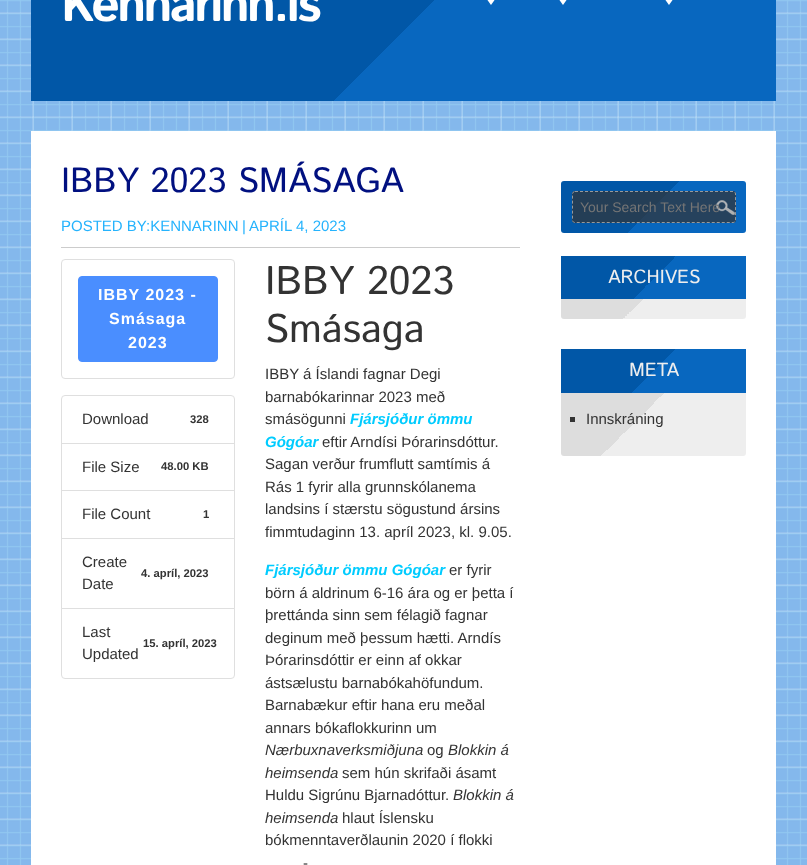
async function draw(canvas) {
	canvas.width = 807;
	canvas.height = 865;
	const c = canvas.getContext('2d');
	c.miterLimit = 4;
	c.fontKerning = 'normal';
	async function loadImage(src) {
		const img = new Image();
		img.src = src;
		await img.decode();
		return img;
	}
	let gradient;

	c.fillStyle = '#fff';
	c.fillRect(0, 0, 807, 865);
	c.drawImage(await loadImage('img1.png'), 0, 0, 807, 865);
	gradient = c.createLinearGradient(625, 252, 182, -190);
	gradient.addColorStop(0.5, '#0867bf');
	gradient.addColorStop(0.5, '#0157a7');
	c.fillStyle = gradient;
	c.fillRect(31, 0, 745, 101);
	c.letterSpacing = '-3px';
	c.font = 'bold 50px Istok Web';
	c.fillStyle = '#fff';
	c.fillText('Kennarinn.is', 61, 21);
	c.beginPath();
	c.moveTo(486, -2);
	c.lineTo(496, -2);
	c.lineTo(491, 5);
	c.closePath();
	c.fill();
	c.beginPath();
	c.moveTo(558, -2);
	c.lineTo(568, -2);
	c.lineTo(563, 5);
	c.closePath();
	c.fill();
	c.beginPath();
	c.moveTo(664, -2);
	c.lineTo(674, -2);
	c.lineTo(669, 5);
	c.closePath();
	c.fill();
	c.fillRect(31, 131, 745, 734);
	c.letterSpacing = '0px';
	c.font = '35px Istok Web';
	c.fillStyle = '#011080';
	c.fillText('IBBY 2023 SMÁSAGA', 61, 192);
	c.font = '15px Liberation Sans';
	c.fillStyle = '#25b3fd';
	for (const [text, x, y] of [
		['POSTED BY:KENNARINN', 61, 231],
		['|', 242, 231],
		['APRÍL 4, 2023', 249, 231],
	]) {
		c.fillText(text, x, y);
	}
	c.fillStyle = '#ccc';
	c.fillRect(61, 247, 459, 1);
	c.beginPath();
	c.roundRect(61.5, 259.5, 173, 119, 3.5);
	c.strokeStyle = '#dfdfdf';
	c.stroke();
	c.fillStyle = '#4a8eff';
	c.beginPath();
	c.roundRect(78.5, 276.5, 139, 85, 3.5);
	c.fill();
	c.strokeStyle = '#4a8eff';
	c.stroke();
	c.letterSpacing = '1px';
	c.font = 'bold 16px Liberation Sans';
	c.fillStyle = '#fff';
	for (const [text, x, y] of [
		['IBBY 2023 -', 98, 300],
		['Smásaga', 109, 324],
		['2023', 128, 348],
	]) {
		c.fillText(text, x, y);
	}
	c.beginPath();
	c.roundRect(61.5, 395.5, 173, 48, [3.5, 3.5, 0, 0]);
	c.strokeStyle = '#dfdfdf';
	c.stroke();
	c.letterSpacing = '0px';
	c.font = '15px Liberation Sans';
	c.fillStyle = '#333';
	c.fillText('Download', 82, 424);
	c.font = 'bold 11.25px Liberation Sans';
	c.fillText('328', 190, 423);
	c.strokeRect(61.5, 443.5, 173, 47);
	c.font = '15px Liberation Sans';
	c.fillText('File Size', 82, 472);
	c.font = 'bold 11.25px Liberation Sans';
	c.fillText('48.00 KB', 161, 470);
	c.strokeRect(61.5, 490.5, 173, 48);
	c.font = '15px Liberation Sans';
	c.fillText('File Count', 82, 519);
	c.font = 'bold 11.25px Liberation Sans';
	c.fillText('1', 203, 518);
	c.strokeRect(61.5, 538.5, 173, 70);
	c.font = '15px Liberation Sans';
	c.fillText('Create', 82, 567);
	c.font = 'bold 11.25px Liberation Sans';
	c.fillText('4. apríl, 2023', 141, 577);
	c.font = '15px Liberation Sans';
	c.fillText('Date', 82, 589);
	c.fillStyle = '#fff';
	c.beginPath();
	c.roundRect(61.5, 608.5, 173, 70, [0, 0, 3.5, 3.5]);
	c.fill();
	c.stroke();
	c.fillStyle = '#333';
	c.fillText('Last', 82, 637);
	c.font = 'bold 11.25px Liberation Sans';
	c.fillText('15. apríl, 2023', 143, 647);
	c.font = '15px Liberation Sans';
	c.fillText('Updated', 82, 659);
	c.font = '40px Istok Web';
	c.fillText('IBBY 2023', 265, 294);
	c.fillText('Smásaga', 265, 342);
	c.font = '15px Liberation Sans';
	for (const [text, x, y] of [
		['IBBY á Íslandi fagnar Degi', 265, 379],
		['barnabókarinnar 2023 með', 265, 402],
		['smásögunni', 265, 424],
	]) {
		c.fillText(text, x, y);
	}
	c.font = 'italic bold 15px Liberation Sans';
	c.fillStyle = '#0cf';
	c.fillText('Fjársjóður ömmu', 350, 424);
	c.fillText('Gógóar', 265, 447);
	c.font = '15px Liberation Sans';
	c.fillStyle = '#333';
	for (const [text, x, y] of [
		['eftir Arndísi Þórarinsdóttur.', 322, 447],
		['Sagan verður frumflutt samtímis á', 265, 469],
		['Rás 1 fyrir alla grunnskólanema', 265, 492],
		['landsins í stærstu sögustund ársins', 265, 514],
		['fimmtudaginn 13. apríl 2023, kl. 9.05.', 265, 537],
	]) {
		c.fillText(text, x, y);
	}
	c.font = 'italic bold 15px Liberation Sans';
	c.fillStyle = '#0cf';
	c.fillText('Fjársjóður ömmu Gógóar', 265, 575);
	c.font = '15px Liberation Sans';
	c.fillStyle = '#333';
	for (const [text, x, y] of [
		['er fyrir', 449, 575],
		['börn á aldrinum 6-16 ára og er þetta í', 265, 598],
		['þrettánda sinn sem félagið fagnar', 265, 620],
		['deginum með þessum hætti. Arndís', 265, 643],
		['Þórarinsdóttir er einn af okkar', 265, 665],
		['ástsælustu barnabókahöfundum.', 265, 688],
		['Barnabækur eftir hana eru meðal', 265, 710],
		['annars bókaflokkurinn um', 265, 733],
	]) {
		c.fillText(text, x, y);
	}
	c.font = 'italic 15px Liberation Sans';
	c.fillText('Nærbuxnaverksmiðjuna', 265, 755);
	c.font = '15px Liberation Sans';
	c.fillText('og', 427, 755);
	c.font = 'italic 15px Liberation Sans';
	c.fillText('Blokkin á', 448, 755);
	c.fillText('heimsenda', 265, 778);
	c.font = '15px Liberation Sans';
	c.fillText('sem hún skrifaði ásamt', 342, 778);
	c.fillText('Huldu Sigrúnu Bjarnadóttur.', 265, 800);
	c.font = 'italic 15px Liberation Sans';
	c.fillText('Blokkin á', 453, 800);
	c.fillText('heimsenda', 265, 823);
	c.font = '15px Liberation Sans';
	for (const [text, x, y] of [
		['hlaut Íslensku', 342, 823],
		['bókmenntaverðlaunin 2020 í flokki', 265, 845],
		['-', 303, 868],
	]) {
		c.fillText(text, x, y);
	}
	gradient = c.createLinearGradient(713, 266, 594, 148);
	gradient.addColorStop(0.5, '#0867bf');
	gradient.addColorStop(0.5, '#0157a7');
	c.fillStyle = gradient;
	c.beginPath();
	c.roundRect(561, 181, 185, 52, 3);
	c.fill();
	c.fillStyle = '#333333b3';
	c.beginPath();
	c.roundRect(572, 191, 164, 32, 3);
	c.fill();
	c.drawImage(await loadImage('img2.png'), 716, 200, 19, 15);
	c.beginPath();
	c.moveTo(575, 191.5);
	c.lineTo(733, 191.5);
	c.bezierCurveTo(734.5, 191.5, 735.5, 192.5, 735.5, 194);
	c.lineTo(735.5, 220);
	c.bezierCurveTo(735.5, 221.5, 734.5, 222.5, 733, 222.5);
	c.lineTo(575, 222.5);
	c.bezierCurveTo(573.5, 222.5, 572.5, 221.5, 572.5, 220);
	c.lineTo(572.5, 194);
	c.bezierCurveTo(572.5, 192.5, 573.5, 191.5, 575, 191.5);
	c.closePath();
	c.strokeStyle = '#999';
	c.setLineDash([3, 2]);
	c.stroke();
	c.font = '14px Liberation Sans';
	c.fillStyle = '#757575';
	c.fillText('Your Search Text Here', 580, 212);
	gradient = c.createLinearGradient(716, 350, 592, 226);
	gradient.addColorStop(0.5, '#eee');
	gradient.addColorStop(0.5, '#ddd');
	c.fillStyle = gradient;
	c.beginPath();
	c.roundRect(561, 256, 185, 63, [0, 0, 3, 3]);
	c.fill();
	gradient = c.createLinearGradient(711, 335, 597, 221);
	gradient.addColorStop(0.5, '#0867bf');
	gradient.addColorStop(0.5, '#0157a7');
	c.fillStyle = gradient;
	c.fillRect(561, 256, 185, 43);
	c.font = '19px Istok Web';
	c.fillStyle = '#eee';
	c.fillText('ARCHIVES', 608, 283);
	gradient = c.createLinearGradient(727, 476, 581, 330);
	gradient.addColorStop(0.5, '#eee');
	gradient.addColorStop(0.5, '#ddd');
	c.fillStyle = gradient;
	c.beginPath();
	c.roundRect(561, 349, 185, 107, [0, 0, 3, 3]);
	c.fill();
	gradient = c.createLinearGradient(711, 428, 596, 314);
	gradient.addColorStop(0.5, '#0867bf');
	gradient.addColorStop(0.5, '#0157a7');
	c.fillStyle = gradient;
	c.fillRect(561, 349, 185, 44);
	c.fillStyle = '#eee';
	c.fillText('META', 629, 376);
	c.fillStyle = '#333';
	c.fillRect(570, 417, 5, 5);
	c.font = '15px Liberation Sans';
	c.fillText('Innskráning', 586, 424);
}

draw(document.querySelector('canvas'));
